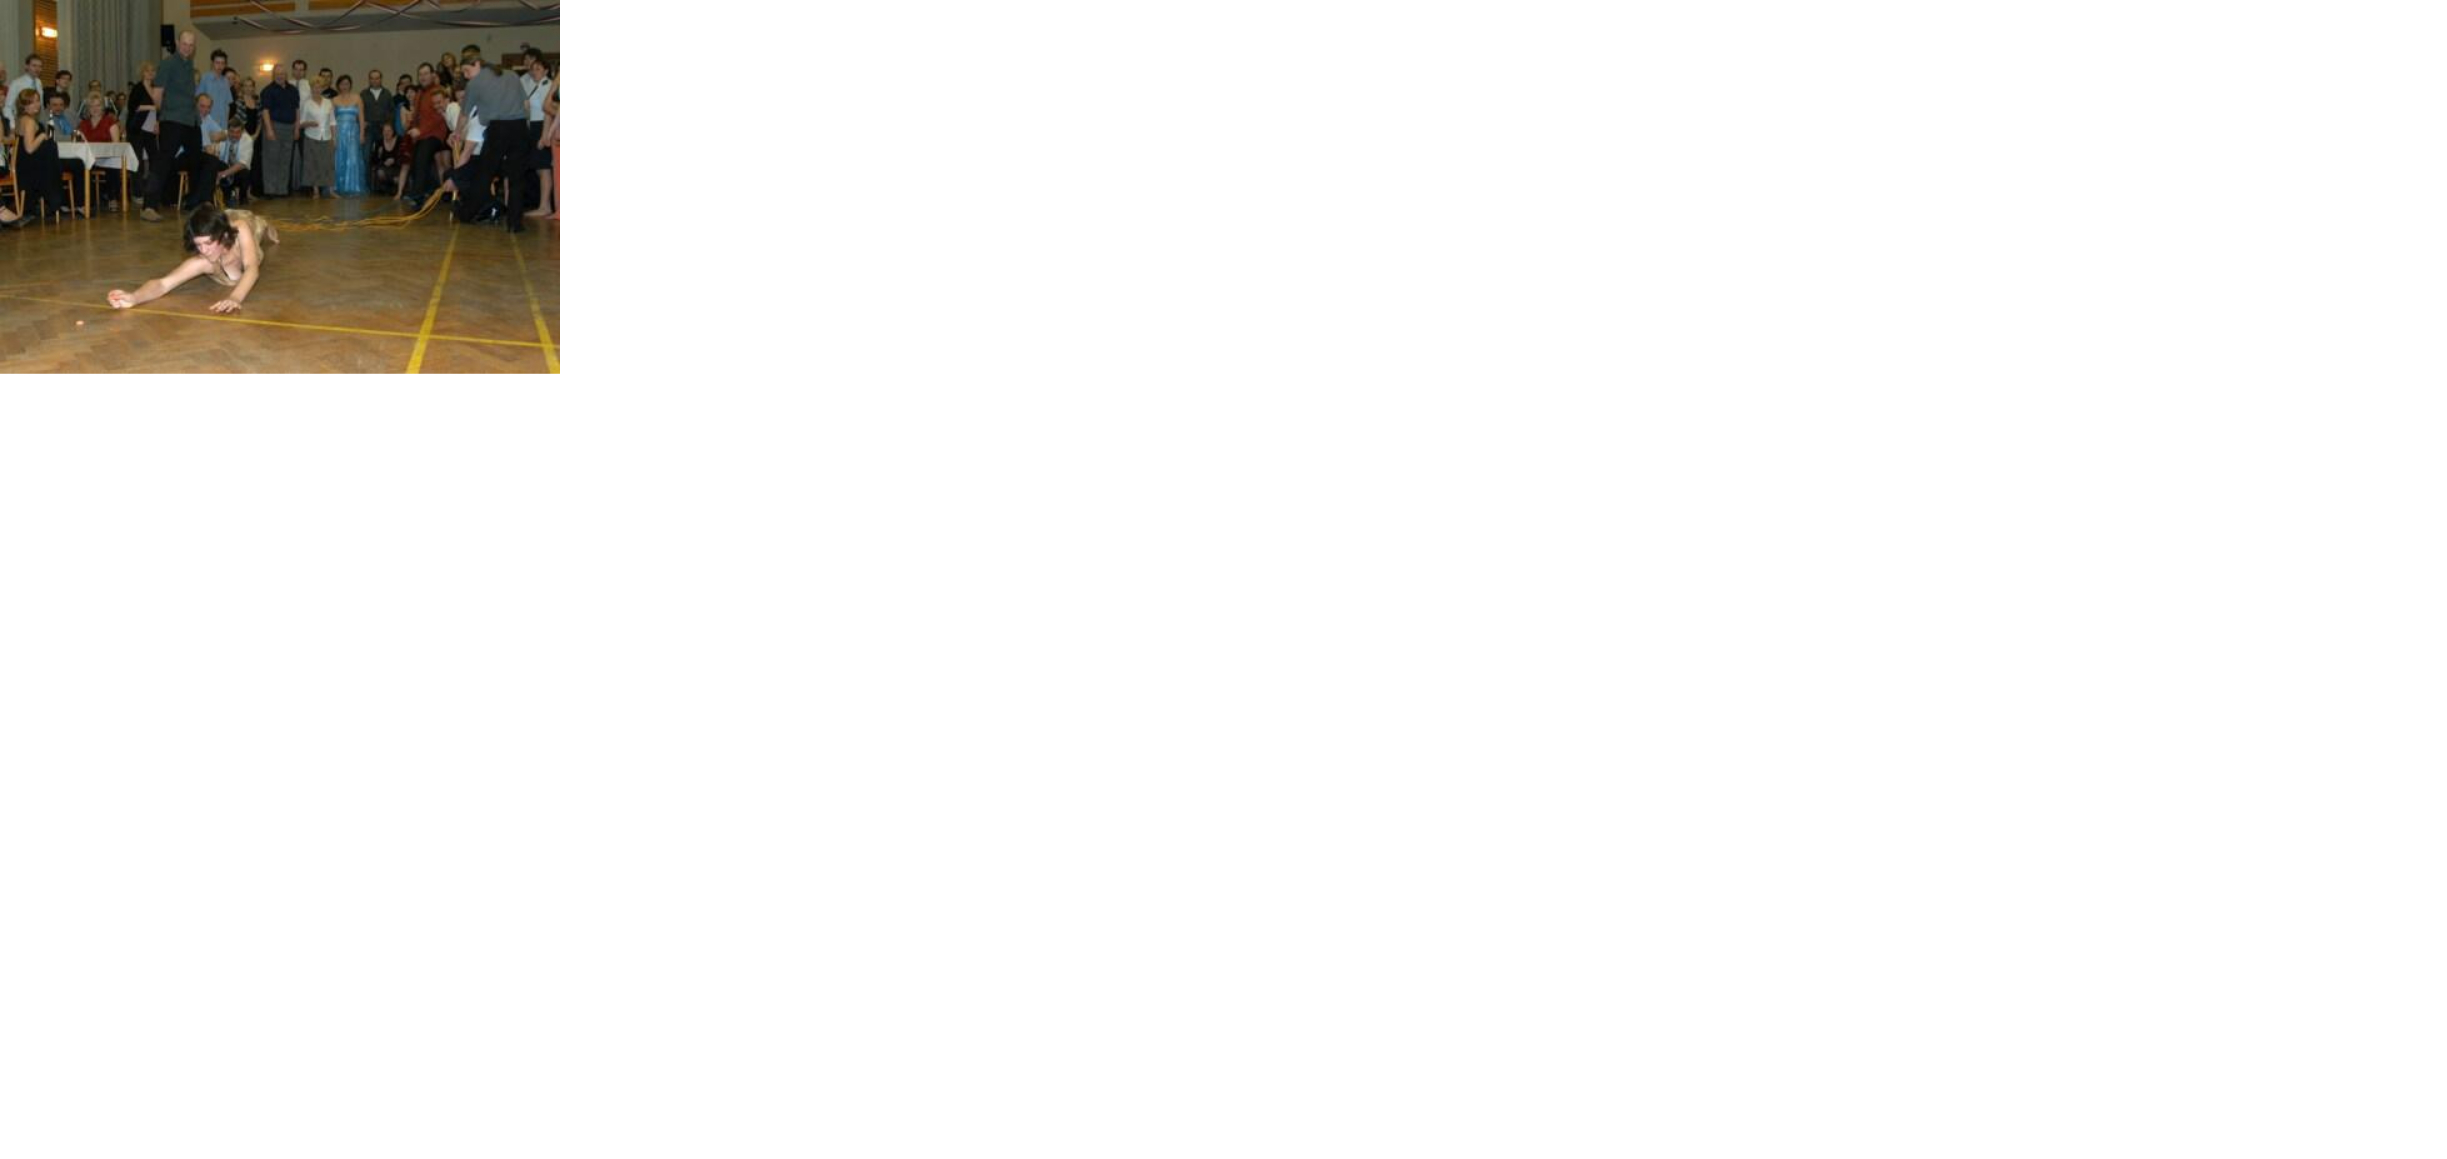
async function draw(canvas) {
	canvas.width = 2447;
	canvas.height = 1159;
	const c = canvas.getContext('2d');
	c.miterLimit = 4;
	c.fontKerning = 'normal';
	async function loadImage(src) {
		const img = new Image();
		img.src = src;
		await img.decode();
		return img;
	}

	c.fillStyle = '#fff';
	c.fillRect(0, 0, 2447, 1159);
	c.drawImage(await loadImage('img1.png'), 0, 0, 560, 374);
}

draw(document.querySelector('canvas'));
